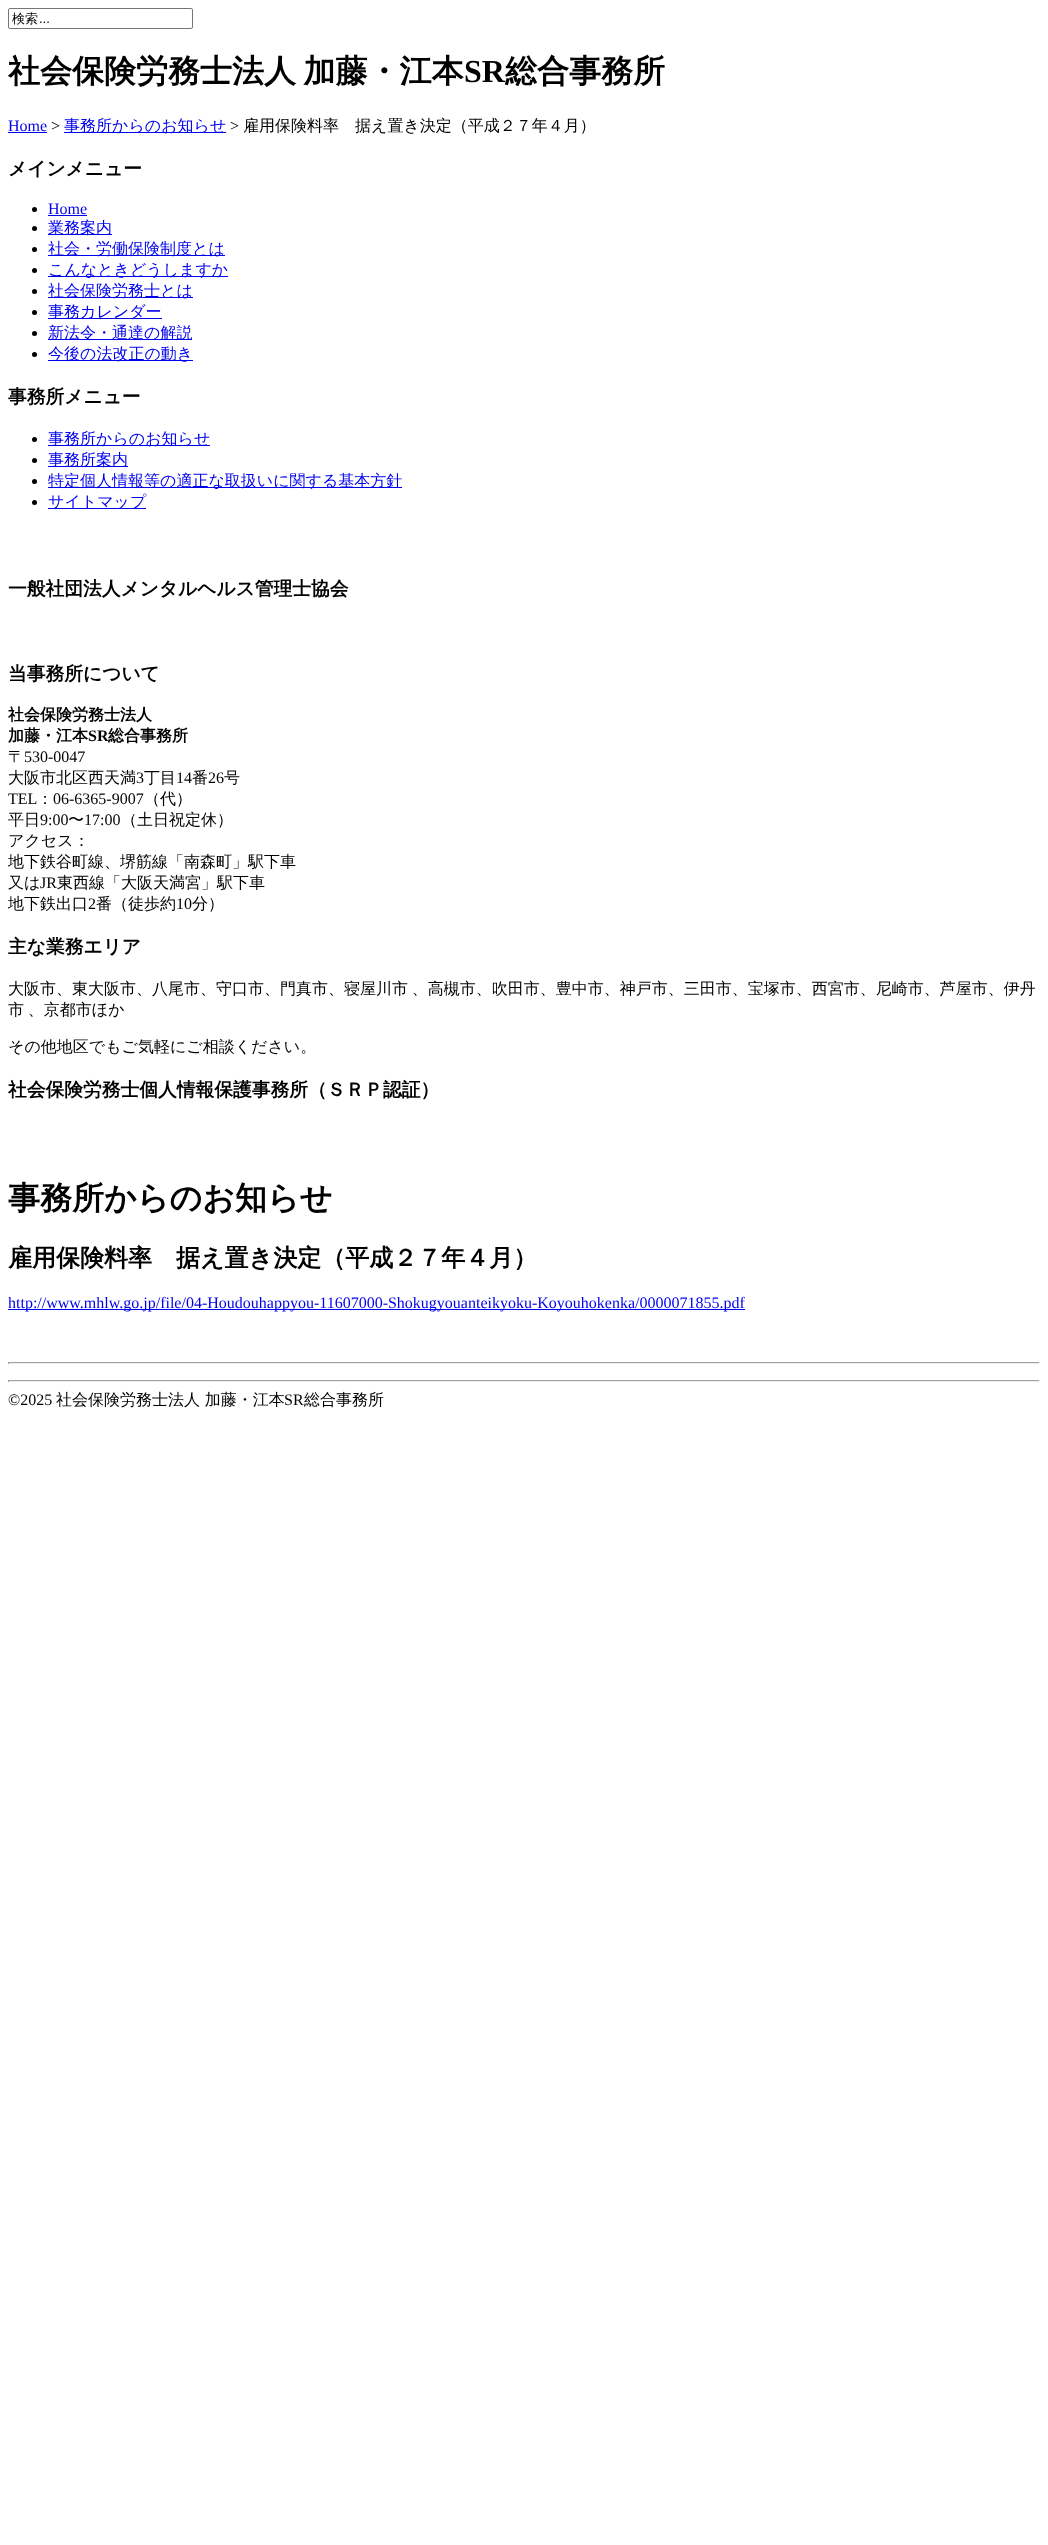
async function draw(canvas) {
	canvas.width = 1048;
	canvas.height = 2545;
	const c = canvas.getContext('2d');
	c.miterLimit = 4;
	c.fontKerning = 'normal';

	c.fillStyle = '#fff';
	c.fillRect(0, 0, 1048, 2545);
	c.beginPath();
	c.roundRect(8.5, 8.5, 184, 20, 1.5);
	c.strokeStyle = '#767676';
	c.stroke();
	c.font = '500 13px WenQuanYi Zen Hei';
	c.fillStyle = '#000';
	c.fillText('検索', 12, 23);
	c.font = '13px Liberation Sans';
	c.fillText('...', 39, 23);
	c.wordSpacing = '-2px';
	c.font = 'bold 32px WenQuanYi Zen Hei';
	c.fillText('社会保険労務士法人 加藤・江本', 8, 82);
	c.wordSpacing = '0px';
	c.font = 'bold 32px Liberation Serif';
	c.fillText('SR', 464, 82);
	c.font = 'bold 32px WenQuanYi Zen Hei';
	c.fillText('総合事務所', 505, 82);
	c.font = '16px Liberation Serif';
	c.fillStyle = '#00e';
	c.fillText('Home', 8, 131);
	c.fillRect(8, 132, 39, 1);
	c.fillStyle = '#000';
	c.fillText('>', 51, 131);
	c.fillStyle = '#00e';
	c.fillRect(64, 132, 162, 1);
	c.font = '500 16px WenQuanYi Zen Hei';
	c.fillText('事務所からのお知らせ', 64, 131);
	c.font = '16px Liberation Serif';
	c.fillStyle = '#000';
	c.fillText('>', 230, 131);
	c.font = '500 16px WenQuanYi Zen Hei';
	c.fillText('雇用保険料率　据え置き決定（平成２７年４月）', 243, 131);
	c.font = 'bold 18.75px WenQuanYi Zen Hei';
	c.fillText('メインメニュー', 8, 175);
	c.beginPath();
	c.arc(34.5, 209.5, 2.5, 0, 2 * Math.PI);
	c.fill();
	c.font = '16px Liberation Serif';
	c.fillStyle = '#00e';
	c.fillText('Home', 48, 214);
	c.fillRect(48, 215, 39, 1);
	c.fillStyle = '#000';
	c.beginPath();
	c.arc(34.5, 228.5, 2.5, 0, 2 * Math.PI);
	c.fill();
	c.fillStyle = '#00e';
	c.fillRect(48, 234, 64, 1);
	c.font = '500 16px WenQuanYi Zen Hei';
	c.fillText('業務案内', 48, 233);
	c.fillStyle = '#000';
	c.beginPath();
	c.arc(34.5, 249.5, 2.5, 0, 2 * Math.PI);
	c.fill();
	c.fillStyle = '#00e';
	c.fillRect(48, 255, 177, 1);
	c.fillText('社会・労働保険制度とは', 48, 254);
	c.fillStyle = '#000';
	c.beginPath();
	c.arc(34.5, 270.5, 2.5, 0, 2 * Math.PI);
	c.fill();
	c.fillStyle = '#00e';
	c.fillRect(48, 276, 180, 1);
	c.fillText('こんなときどうしますか', 48, 275);
	c.fillStyle = '#000';
	c.beginPath();
	c.arc(34.5, 291.5, 2.5, 0, 2 * Math.PI);
	c.fill();
	c.fillStyle = '#00e';
	c.fillRect(48, 297, 145, 1);
	c.fillText('社会保険労務士とは', 48, 296);
	c.fillStyle = '#000';
	c.beginPath();
	c.arc(34.5, 312.5, 2.5, 0, 2 * Math.PI);
	c.fill();
	c.fillStyle = '#00e';
	c.fillRect(48, 318, 114, 1);
	c.fillText('事務カレンダー', 48, 317);
	c.fillStyle = '#000';
	c.beginPath();
	c.arc(34.5, 333.5, 2.5, 0, 2 * Math.PI);
	c.fill();
	c.fillStyle = '#00e';
	c.fillRect(48, 339, 144, 1);
	c.fillText('新法令・通達の解説', 48, 338);
	c.fillStyle = '#000';
	c.beginPath();
	c.arc(34.5, 354.5, 2.5, 0, 2 * Math.PI);
	c.fill();
	c.fillStyle = '#00e';
	c.fillRect(48, 360, 145, 1);
	c.fillText('今後の法改正の動き', 48, 359);
	c.font = 'bold 18.75px WenQuanYi Zen Hei';
	c.fillStyle = '#000';
	c.fillText('事務所メニュー', 8, 403);
	c.beginPath();
	c.arc(34.5, 439.5, 2.5, 0, 2 * Math.PI);
	c.fill();
	c.fillStyle = '#00e';
	c.fillRect(48, 445, 162, 1);
	c.font = '500 16px WenQuanYi Zen Hei';
	c.fillText('事務所からのお知らせ', 48, 444);
	c.fillStyle = '#000';
	c.beginPath();
	c.arc(34.5, 460.5, 2.5, 0, 2 * Math.PI);
	c.fill();
	c.fillStyle = '#00e';
	c.fillRect(48, 466, 80, 1);
	c.fillText('事務所案内', 48, 465);
	c.fillStyle = '#000';
	c.beginPath();
	c.arc(34.5, 481.5, 2.5, 0, 2 * Math.PI);
	c.fill();
	c.fillStyle = '#00e';
	c.fillRect(48, 487, 354, 1);
	c.fillText('特定個人情報等の適正な取扱いに関する基本方針', 48, 486);
	c.fillStyle = '#000';
	c.beginPath();
	c.arc(34.5, 502.5, 2.5, 0, 2 * Math.PI);
	c.fill();
	c.fillStyle = '#00e';
	c.fillRect(48, 508, 98, 1);
	c.fillText('サイトマップ', 48, 507);
	c.font = 'bold 18.75px WenQuanYi Zen Hei';
	c.fillStyle = '#000';
	c.fillText('一般社団法人メンタルヘルス管理士協会', 8, 595);
	c.fillText('当事務所について', 8, 680);
	c.font = 'bold 16px WenQuanYi Zen Hei';
	c.fillText('社会保険労務士法人', 8, 720);
	c.fillText('加藤・江本', 8, 741);
	c.font = 'bold 16px Liberation Serif';
	c.fillText('SR', 88, 741);
	c.font = 'bold 16px WenQuanYi Zen Hei';
	c.fillText('総合事務所', 108, 741);
	c.font = '500 16px WenQuanYi Zen Hei';
	c.fillText('〒', 8, 762);
	c.font = '16px Liberation Serif';
	c.fillText('530-0047', 24, 762);
	c.font = '500 16px WenQuanYi Zen Hei';
	c.fillText('大阪市北区西天満', 8, 783);
	c.font = '16px Liberation Serif';
	c.fillText('3', 136, 783);
	c.font = '500 16px WenQuanYi Zen Hei';
	c.fillText('丁目', 144, 783);
	c.font = '16px Liberation Serif';
	c.fillText('14', 176, 783);
	c.font = '500 16px WenQuanYi Zen Hei';
	c.fillText('番', 192, 783);
	c.font = '16px Liberation Serif';
	c.fillText('26', 208, 783);
	c.font = '500 16px WenQuanYi Zen Hei';
	c.fillText('号', 224, 783);
	c.font = '16px Liberation Serif';
	c.fillText('TEL', 8, 804);
	c.font = '500 16px WenQuanYi Zen Hei';
	c.fillText('：', 37, 804);
	c.font = '16px Liberation Serif';
	c.fillText('06-6365-9007', 53, 804);
	c.font = '500 16px WenQuanYi Zen Hei';
	c.fillText('（代）', 144, 804);
	c.fillText('平日', 8, 825);
	c.font = '16px Liberation Serif';
	c.fillText('9:00', 40, 825);
	c.font = '500 16px WenQuanYi Zen Hei';
	c.fillText('〜', 68, 825);
	c.font = '16px Liberation Serif';
	c.fillText('17:00', 84, 825);
	c.font = '500 16px WenQuanYi Zen Hei';
	for (const [text, x, y] of [
		['（土日祝定休）', 121, 825],
		['アクセス：', 8, 846],
		['地下鉄谷町線、堺筋線「南森町」駅下車', 8, 867],
		['又は', 8, 888],
	]) {
		c.fillText(text, x, y);
	}
	c.font = '16px Liberation Serif';
	c.fillText('JR', 40, 888);
	c.font = '500 16px WenQuanYi Zen Hei';
	c.fillText('東西線「大阪天満宮」駅下車', 57, 888);
	c.fillText('地下鉄出口', 8, 909);
	c.font = '16px Liberation Serif';
	c.fillText('2', 88, 909);
	c.font = '500 16px WenQuanYi Zen Hei';
	c.fillText('番（徒歩約', 96, 909);
	c.font = '16px Liberation Serif';
	c.fillText('10', 176, 909);
	c.font = '500 16px WenQuanYi Zen Hei';
	c.fillText('分）', 192, 909);
	c.font = 'bold 18.75px WenQuanYi Zen Hei';
	c.fillText('主な業務エリア', 8, 953);
	c.wordSpacing = '-1px';
	c.font = '500 16px WenQuanYi Zen Hei';
	c.fillText('大阪市、東大阪市、八尾市、守口市、門真市、寝屋川市 、高槻市、吹田市、豊中市、神戸市、三田市、宝塚市、西宮市、尼崎市、芦屋市、伊丹', 8, 994);
	c.fillText('市 、京都市ほか', 8, 1015);
	c.wordSpacing = '0px';
	c.fillText('その他地区でもご気軽にご相談ください。', 8, 1052);
	c.font = 'bold 18.75px WenQuanYi Zen Hei';
	c.fillText('社会保険労務士個人情報保護事務所（ＳＲＰ認証）', 8, 1096);
	c.font = 'bold 32px WenQuanYi Zen Hei';
	c.fillText('事務所からのお知らせ', 8, 1209);
	c.font = 'bold 24px WenQuanYi Zen Hei';
	c.fillText('雇用保険料率　据え置き決定（平成２７年４月）', 8, 1266);
	c.fillStyle = '#00e';
	c.fillRect(8, 1309, 737, 1);
	c.font = '16px Liberation Serif';
	c.fillText('http://www.mhlw.go.jp/file/04-Houdouhappyou-11607000-Shokugyouanteikyoku-Koyouhokenka/0000071855.pdf', 8, 1308);
	for (const [x, y, w, h, color] of [
		[8, 1362, 1032, 1, '#9f9f9f'],
		[1039, 1362, 1, 2, '#eee'],
		[8, 1363, 1032, 1, '#eee'],
		[8, 1362, 1, 2, '#9f9f9f'],
		[8, 1380, 1032, 1, '#9f9f9f'],
		[1039, 1380, 1, 2, '#eee'],
		[8, 1381, 1032, 1, '#eee'],
		[8, 1380, 1, 2, '#9f9f9f'],
	]) {
		c.fillStyle = color;
		c.fillRect(x, y, w, h);
	}
	c.fillStyle = '#000';
	c.fillText('©2025', 8, 1405);
	c.font = '500 16px WenQuanYi Zen Hei';
	c.fillText('社会保険労務士法人 加藤・江本', 56, 1405);
	c.font = '16px Liberation Serif';
	c.fillText('SR', 284, 1405);
	c.font = '500 16px WenQuanYi Zen Hei';
	c.fillText('総合事務所', 304, 1405);
}

draw(document.querySelector('canvas'));
